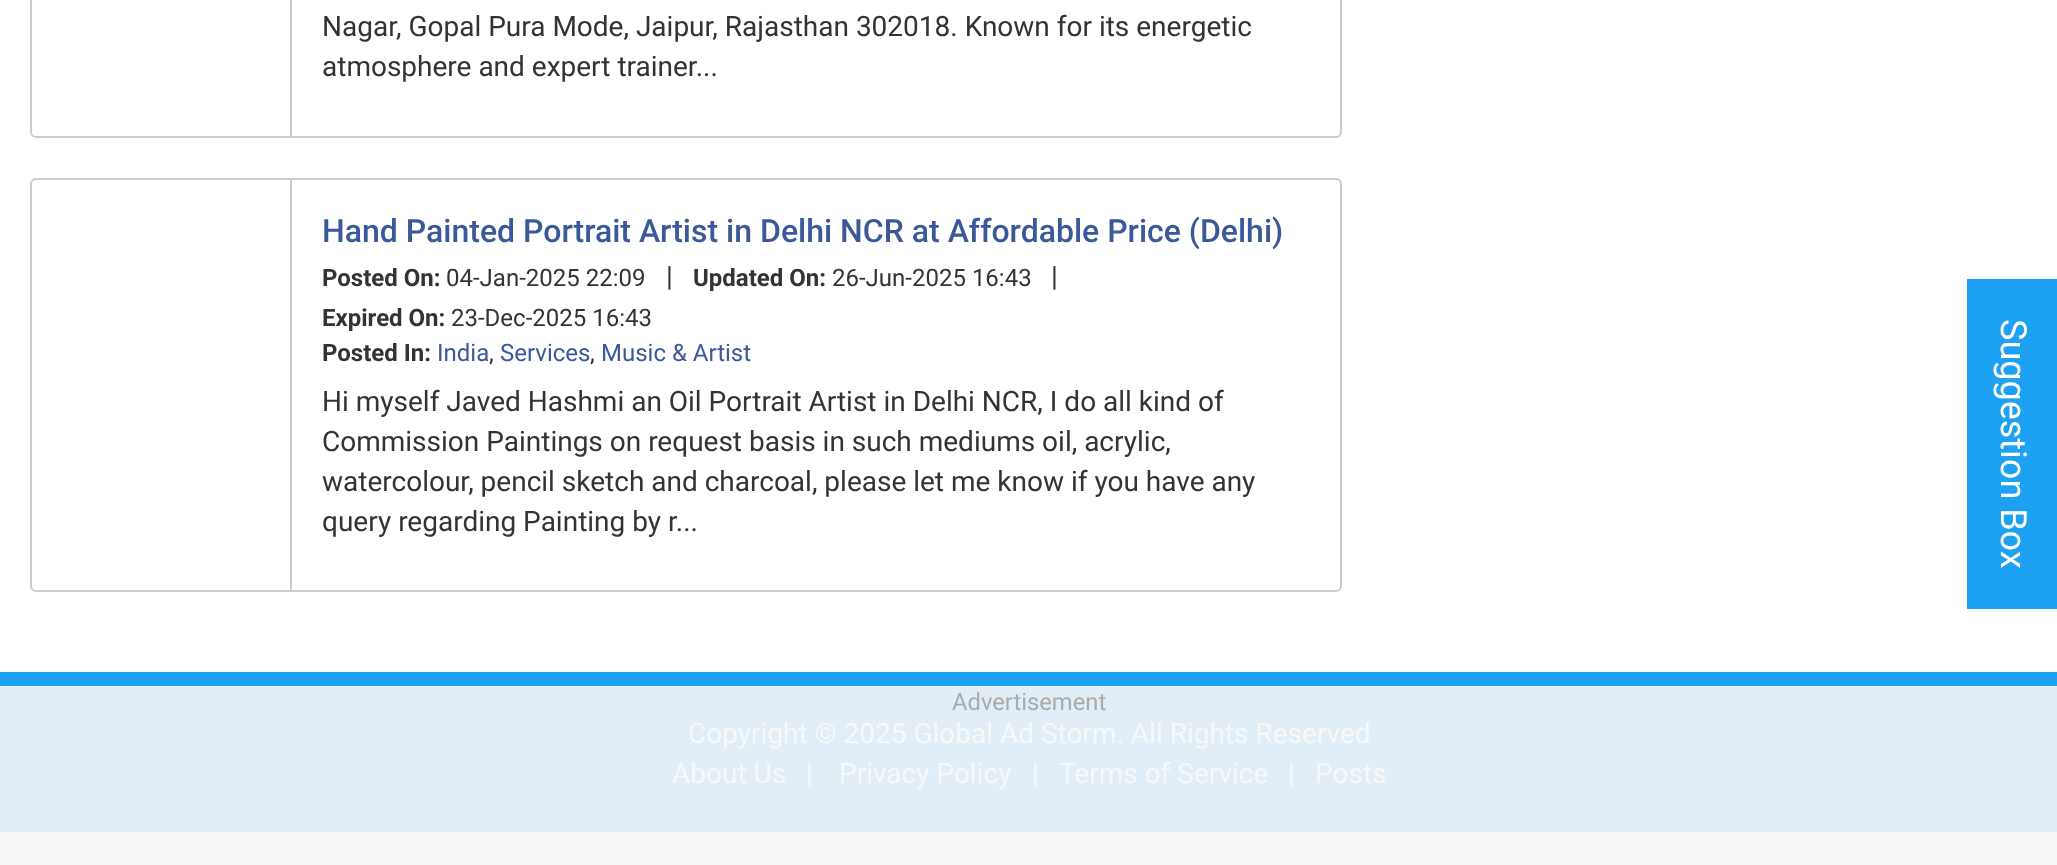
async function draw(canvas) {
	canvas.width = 2057;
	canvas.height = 865;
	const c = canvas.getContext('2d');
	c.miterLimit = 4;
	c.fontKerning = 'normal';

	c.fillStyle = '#fff';
	c.fillRect(0, 0, 2057, 865);
	c.fillStyle = '#f8f8f8';
	c.fillRect(0, 832, 2057, 33);
	c.beginPath();
	c.roundRect(31, -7, 1310, 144, 5);
	c.strokeStyle = '#ccc';
	c.lineWidth = 2;
	c.stroke();
	c.fillStyle = '#ccc';
	c.fillRect(290, 0, 2, 136);
	c.font = '28px Roboto';
	c.fillStyle = '#333';
	c.fillText('Nagar, Gopal Pura Mode, Jaipur, Rajasthan 302018. Known for its energetic', 322, 36);
	c.fillText('atmosphere and expert trainer...', 322, 76);
	c.beginPath();
	c.roundRect(31, 179, 1310, 412, 5);
	c.stroke();
	c.fillStyle = '#ccc';
	c.fillRect(290, 180, 2, 410);
	c.font = '500 32px Roboto';
	c.fillStyle = '#3b5998';
	c.fillText('Hand Painted Portrait Artist in Delhi NCR at Affordable Price (Delhi)', 322, 242);
	c.font = 'bold 24px Roboto';
	c.fillStyle = '#333';
	c.fillText('Posted On:', 322, 286);
	c.font = '24px Roboto';
	c.fillText('04-Jan-2025 22:09', 446, 286);
	c.font = '28px Roboto';
	c.fillText('|', 666, 286);
	c.font = 'bold 24px Roboto';
	c.fillText('Updated On:', 693, 286);
	c.font = '24px Roboto';
	c.fillText('26-Jun-2025 16:43', 832, 286);
	c.font = '28px Roboto';
	c.fillText('|', 1051, 286);
	c.font = 'bold 24px Roboto';
	c.fillText('Expired On:', 322, 326);
	c.font = '24px Roboto';
	c.fillText('23-Dec-2025 16:43', 451, 326);
	c.font = 'bold 24px Roboto';
	c.fillText('Posted In:', 322, 361);
	c.font = '24px Roboto';
	c.fillStyle = '#3b5998';
	c.fillText('India', 437, 361);
	c.fillStyle = '#333';
	c.fillText(',', 489, 361);
	c.fillStyle = '#3b5998';
	c.fillText('Services', 500, 361);
	c.fillStyle = '#333';
	c.fillText(',', 590, 361);
	c.fillStyle = '#3b5998';
	c.fillText('Music & Artist', 601, 361);
	c.font = '28px Roboto';
	c.fillStyle = '#333';
	for (const [text, x, y] of [
		['Hi myself Javed Hashmi an Oil Portrait Artist in Delhi NCR, I do all kind of', 322, 411],
		['Commission Paintings on request basis in such mediums oil, acrylic,', 322, 451],
		['watercolour, pencil sketch and charcoal, please let me know if you have any', 322, 491],
		['query regarding Painting by r...', 322, 531],
	]) {
		c.fillText(text, x, y);
	}
	c.fillStyle = '#1da1f2';
	c.fillRect(1967, 279, 90, 330);
	c.font = '36px Roboto';
	c.fillStyle = '#fff';
	c.save();
	c.translate(2001, 319);
	c.rotate(90 * Math.PI / 180);
	c.fillText('Suggestion Box', 0, 0);
	c.restore();
	c.fillStyle = '#e1eef7';
	c.fillRect(0, 686, 2057, 146);
	c.font = '23.75px Roboto';
	c.fillStyle = '#aaa';
	c.fillText('Advertisement', 952, 710);
	c.fillStyle = '#1da1f2';
	c.fillRect(0, 672, 2057, 14);
	c.font = '28px Roboto';
	c.fillStyle = '#f8f8f8';
	for (const [text, x, y] of [
		['Copyright © 2025 Global Ad Storm. All Rights Reserved', 688, 743],
		['About Us', 672, 783],
		['|', 806, 783],
		['Privacy Policy', 839, 783],
		['|', 1032, 783],
		['Terms of Service', 1059, 783],
		['|', 1288, 783],
		['Posts', 1315, 783],
	]) {
		c.fillText(text, x, y);
	}
}

draw(document.querySelector('canvas'));
